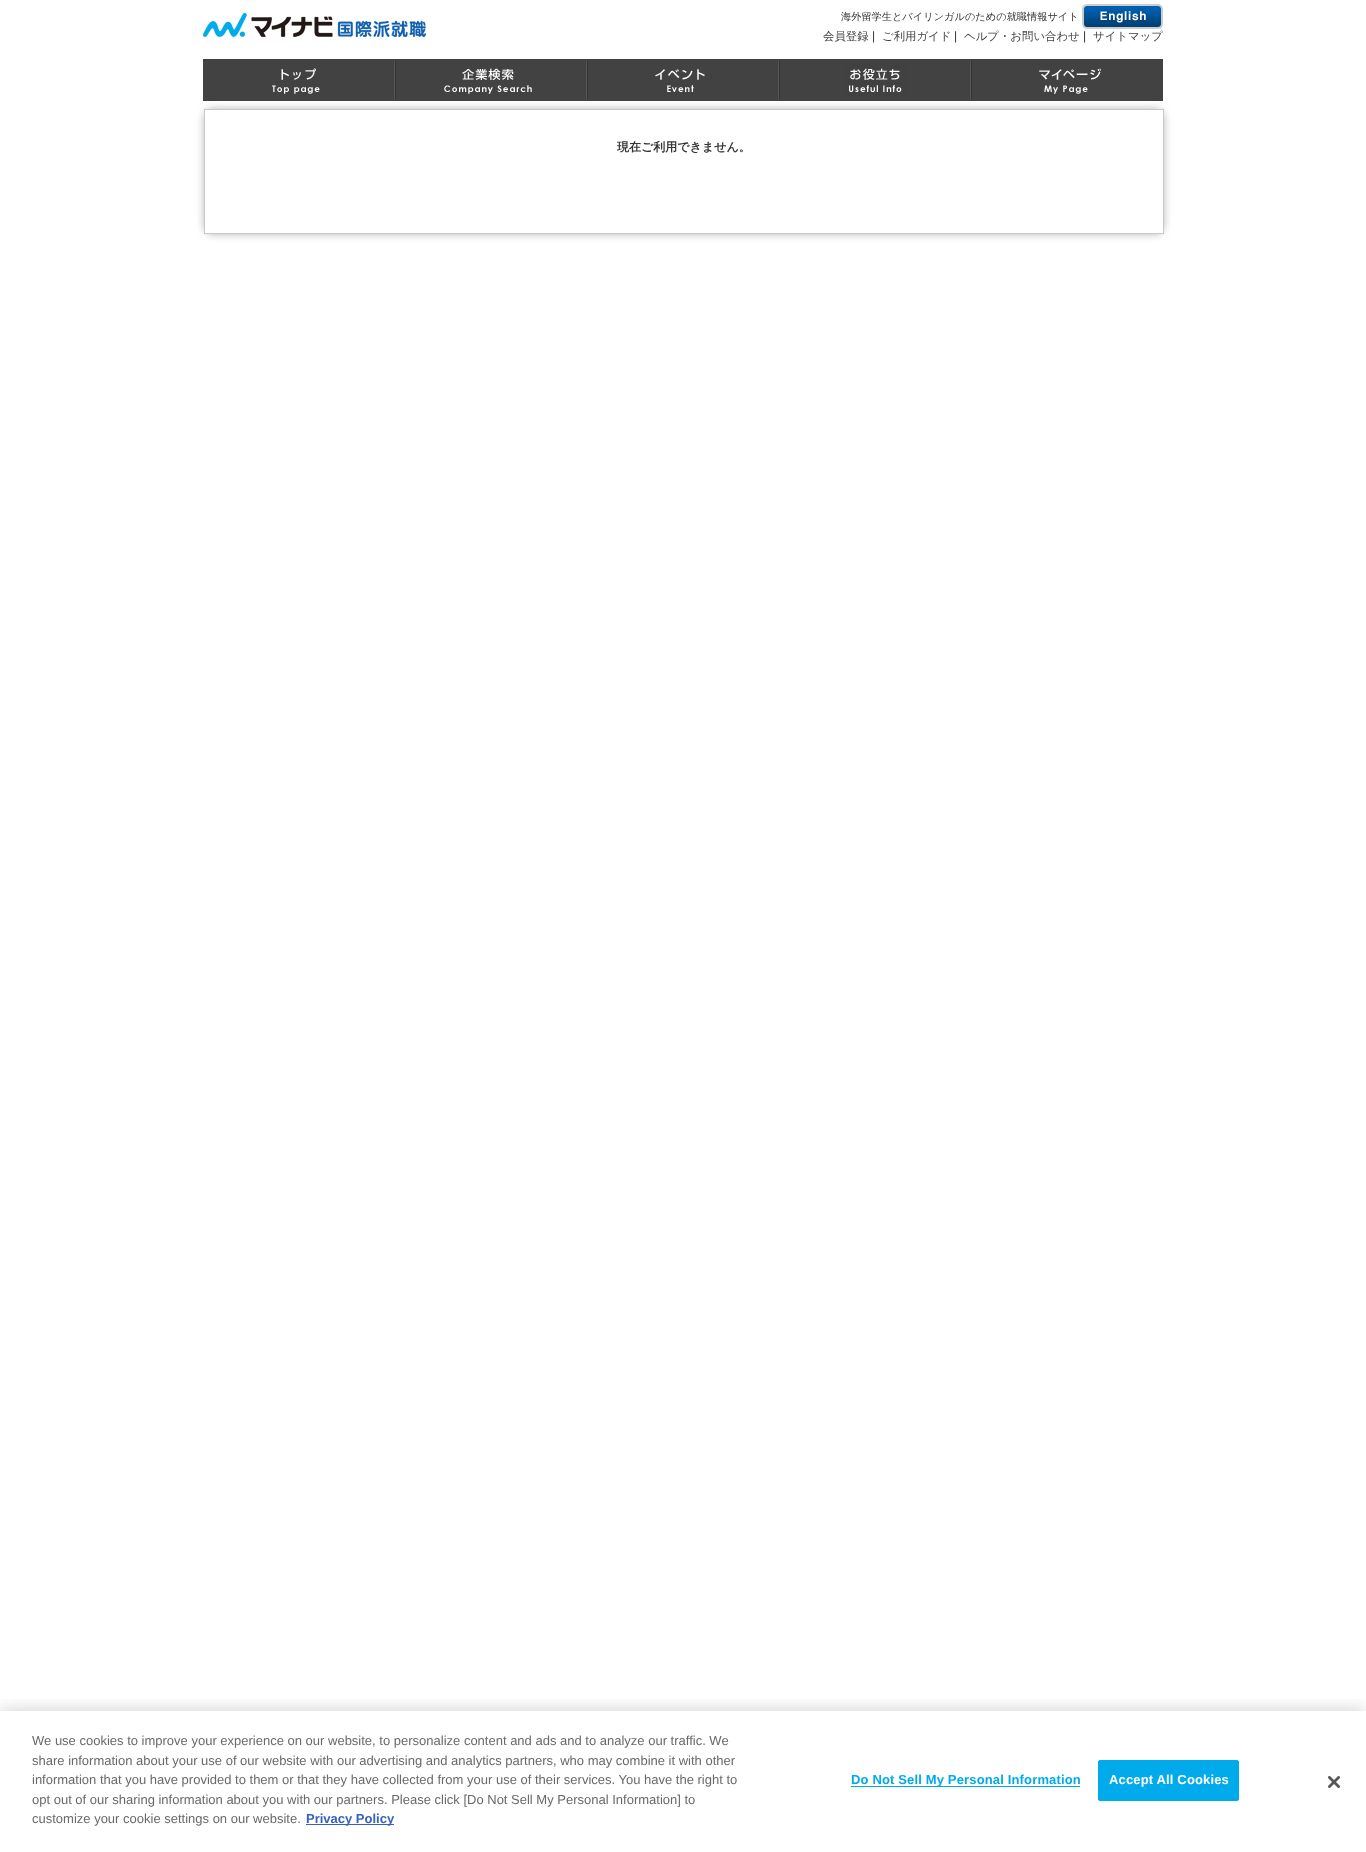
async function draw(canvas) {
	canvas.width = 1366;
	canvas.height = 1852;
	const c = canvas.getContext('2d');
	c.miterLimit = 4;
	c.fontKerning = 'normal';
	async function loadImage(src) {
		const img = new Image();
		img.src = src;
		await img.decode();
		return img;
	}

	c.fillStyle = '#fff';
	c.fillRect(0, 0, 1366, 1852);
	c.drawImage(await loadImage('img1.png'), 203, 13, 223, 24);
	c.font = '500 10.2px WenQuanYi Zen Hei';
	c.fillStyle = '#333';
	c.fillText('海外留学生とバイリンガルのための就職情報サイト', 841, 20);
	c.drawImage(await loadImage('img2.png'), 1082, 4, 81, 25);
	c.font = '500 11.4px WenQuanYi Zen Hei';
	c.fillStyle = '#424242';
	c.fillText('会員登録', 823, 40);
	c.font = '12px Liberation Sans';
	c.fillStyle = '#333';
	c.fillText('|', 872, 40);
	c.font = '500 11.4px WenQuanYi Zen Hei';
	c.fillStyle = '#424242';
	c.fillText('ご利用ガイド', 882, 40);
	c.font = '12px Liberation Sans';
	c.fillStyle = '#333';
	c.fillText('|', 954, 40);
	c.font = '500 11.4px WenQuanYi Zen Hei';
	c.fillStyle = '#424242';
	c.fillText('ヘルプ・お問い合わせ', 964, 40);
	c.font = '12px Liberation Sans';
	c.fillStyle = '#333';
	c.fillText('|', 1083, 40);
	c.font = '500 11.4px WenQuanYi Zen Hei';
	c.fillStyle = '#424242';
	c.fillText('サイトマップ', 1093, 40);
	c.drawImage(await loadImage('img3.png'), 203, 59, 192, 42);
	c.drawImage(await loadImage('img4.png'), 395, 59, 192, 42);
	c.drawImage(await loadImage('img5.png'), 587, 59, 192, 42);
	c.drawImage(await loadImage('img6.png'), 779, 59, 192, 42);
	c.drawImage(await loadImage('img7.png'), 971, 59, 192, 42);
	c.save();
	c.beginPath();
	c.moveTo(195, 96);
	c.lineTo(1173, 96);
	c.lineTo(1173, 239);
	c.lineTo(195, 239);
	c.closePath();
	c.moveTo(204, 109);
	c.lineTo(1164, 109);
	c.lineTo(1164, 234);
	c.lineTo(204, 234);
	c.closePath();
	c.clip('evenodd');
	c.fillStyle = '#c9c9c9';
	c.filter = 'blur(4px)';
	c.beginPath();
	c.rect(208, 109, 952, 117);
	c.fill();
	c.filter = 'none';
	c.restore();
	c.save();
	c.beginPath();
	c.moveTo(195, 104);
	c.lineTo(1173, 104);
	c.lineTo(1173, 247);
	c.lineTo(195, 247);
	c.closePath();
	c.moveTo(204, 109);
	c.lineTo(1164, 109);
	c.lineTo(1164, 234);
	c.lineTo(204, 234);
	c.closePath();
	c.clip('evenodd');
	c.fillStyle = '#c9c9c9';
	c.filter = 'blur(4px)';
	c.beginPath();
	c.rect(208, 117, 952, 117);
	c.fill();
	c.filter = 'none';
	c.restore();
	c.save();
	c.beginPath();
	c.moveTo(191, 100);
	c.lineTo(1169, 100);
	c.lineTo(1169, 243);
	c.lineTo(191, 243);
	c.closePath();
	c.moveTo(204, 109);
	c.lineTo(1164, 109);
	c.lineTo(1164, 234);
	c.lineTo(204, 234);
	c.closePath();
	c.clip('evenodd');
	c.fillStyle = '#c9c9c9';
	c.filter = 'blur(4px)';
	c.beginPath();
	c.rect(204, 113, 952, 117);
	c.fill();
	c.filter = 'none';
	c.restore();
	c.save();
	c.beginPath();
	c.moveTo(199, 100);
	c.lineTo(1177, 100);
	c.lineTo(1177, 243);
	c.lineTo(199, 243);
	c.closePath();
	c.moveTo(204, 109);
	c.lineTo(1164, 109);
	c.lineTo(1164, 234);
	c.lineTo(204, 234);
	c.closePath();
	c.clip('evenodd');
	c.fillStyle = '#c9c9c9';
	c.filter = 'blur(4px)';
	c.beginPath();
	c.rect(212, 113, 952, 117);
	c.fill();
	c.filter = 'none';
	c.restore();
	c.strokeStyle = '#c9c9c9';
	c.strokeRect(204.5, 109.5, 959, 124);
	c.font = 'bold 12px WenQuanYi Zen Hei';
	c.fillStyle = '#333';
	c.fillText('現在ご利用できません。', 617, 151);
	c.save();
	c.beginPath();
	c.rect(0, 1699, 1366, 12);
	c.clip();
	c.fillStyle = '#00000033';
	c.filter = 'blur(9px)';
	c.beginPath();
	c.rect(0, 1711, 1366, 141);
	c.fill();
	c.filter = 'none';
	c.restore();
	c.font = '13px Liberation Sans';
	c.fillStyle = '#696969';
	for (const [text, x, y] of [
		['We use cookies to improve your experience on our website, to personalize content and ads and to analyze our traffic. We', 32, 1745],
		['share information about your use of our website with our advertising and analytics partners, who may combine it with other', 32, 1765],
		['information that you have provided to them or that they have collected from your use of their services. You have the right to', 32, 1784],
		['opt out of our sharing information about you with our partners. Please click [Do Not Sell My Personal Information] to', 32, 1804],
		['customize your cookie settings on our website.', 32, 1823],
	]) {
		c.fillText(text, x, y);
	}
	c.fillStyle = '#3860be';
	c.fillRect(306, 1824, 88, 1);
	c.font = 'bold 13px Liberation Sans';
	c.fillText('Privacy Policy', 306, 1823);
	c.fillStyle = '#00aaeb';
	c.fillRect(851, 1786, 229, 1);
	c.letterSpacing = '0.15px';
	c.fillText('Do Not Sell My Personal Information', 851, 1784);
	c.beginPath();
	c.roundRect(1098.5, 1760.5, 140, 40, 1.5);
	c.fill();
	c.strokeStyle = '#00aaeb';
	c.stroke();
	c.fillStyle = '#fff';
	c.fillText('Accept All Cookies', 1109, 1784);
	c.drawImage(await loadImage('img8.png'), 1328, 1776, 12, 12);
}

draw(document.querySelector('canvas'));
